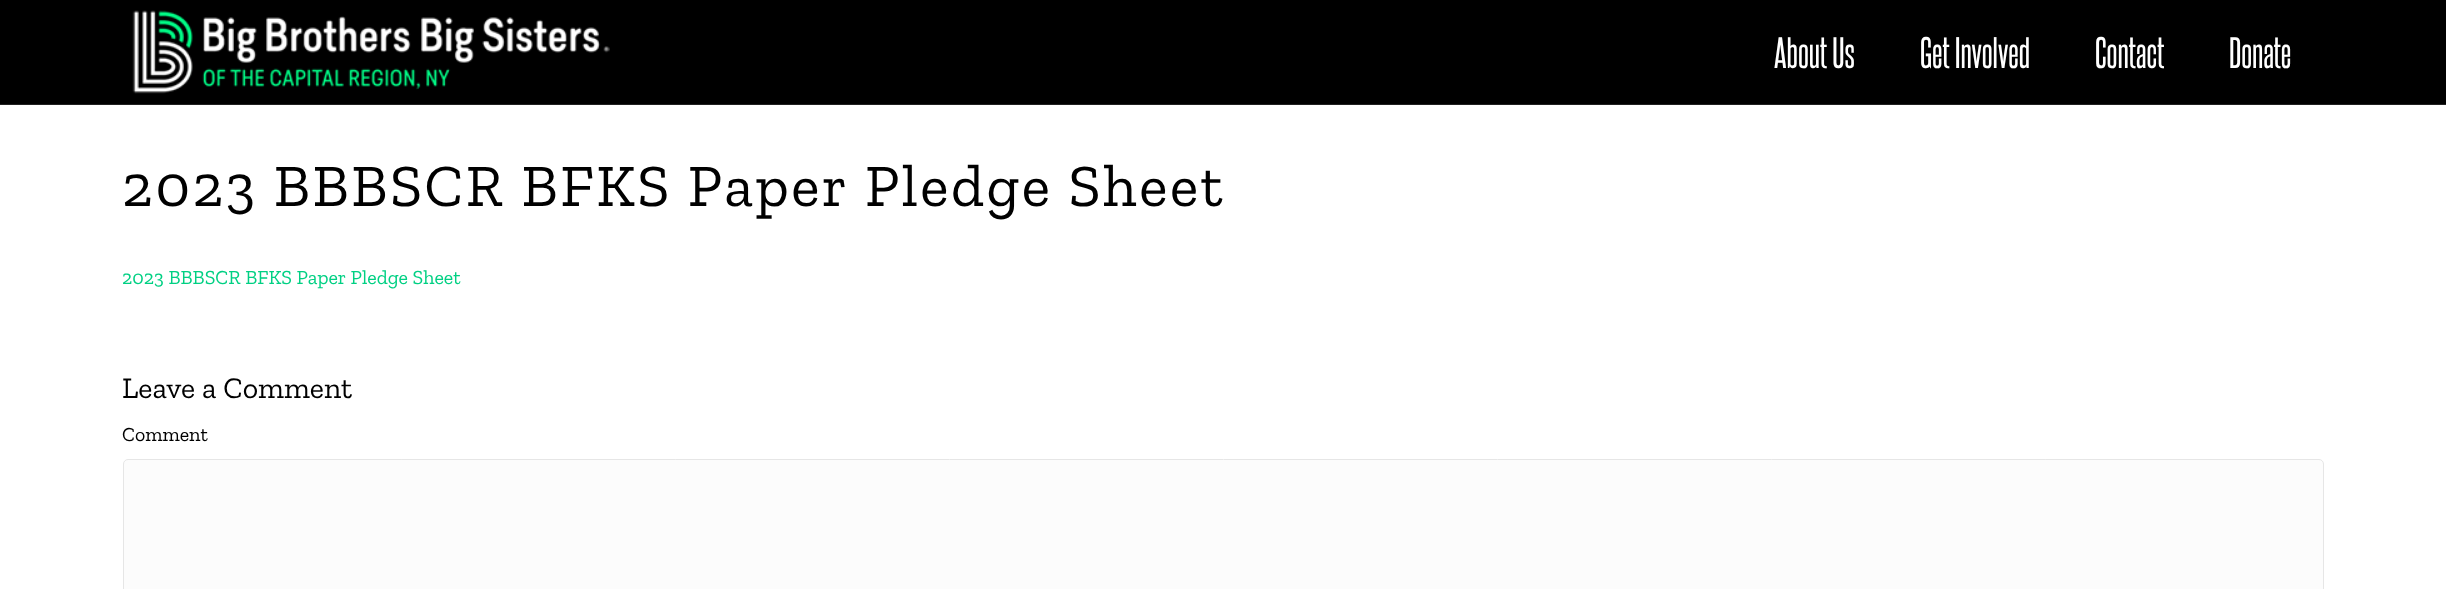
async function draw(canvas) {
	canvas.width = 2446;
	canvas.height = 589;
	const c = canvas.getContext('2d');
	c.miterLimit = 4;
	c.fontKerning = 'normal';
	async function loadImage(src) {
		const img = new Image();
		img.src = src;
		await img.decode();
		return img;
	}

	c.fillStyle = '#fff';
	c.fillRect(0, 0, 2446, 589);
	c.fillStyle = '#000';
	c.fillRect(0, 0, 2446, 104);
	c.fillStyle = '#212121';
	c.fillRect(0, 104, 2446, 1);
	c.drawImage(await loadImage('img1.png'), 132, 10, 478, 84);
	c.font = '37.5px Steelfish';
	c.fillStyle = '#fff';
	for (const [text, x, y] of [
		['About Us', 1774, 68],
		['Get Involved', 1920, 68],
		['Contact', 2095, 68],
		['Donate', 2229, 68],
	]) {
		c.fillText(text, x, y);
	}
	c.letterSpacing = '2.5px';
	c.font = '60px Zilla Slab';
	c.fillStyle = '#000';
	c.fillText('2023 BBBSCR BFKS Paper Pledge Sheet', 122, 206);
	c.letterSpacing = '0px';
	c.font = '20px Zilla Slab';
	c.fillStyle = '#00d083';
	c.fillText('2023 BBBSCR BFKS Paper Pledge Sheet', 122, 284);
	c.font = '30px Zilla Slab';
	c.fillStyle = '#000';
	c.fillText('Leave a Comment', 122, 398);
	c.font = '20px Zilla Slab';
	c.fillText('Comment', 122, 441);
	c.fillStyle = '#fcfcfc';
	c.beginPath();
	c.roundRect(124, 460, 2199, 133, 4);
	c.fill();
	c.beginPath();
	c.roundRect(123.5, 459.5, 2200, 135, 4.5);
	c.strokeStyle = '#e6e6e6';
	c.stroke();
}

draw(document.querySelector('canvas'));
